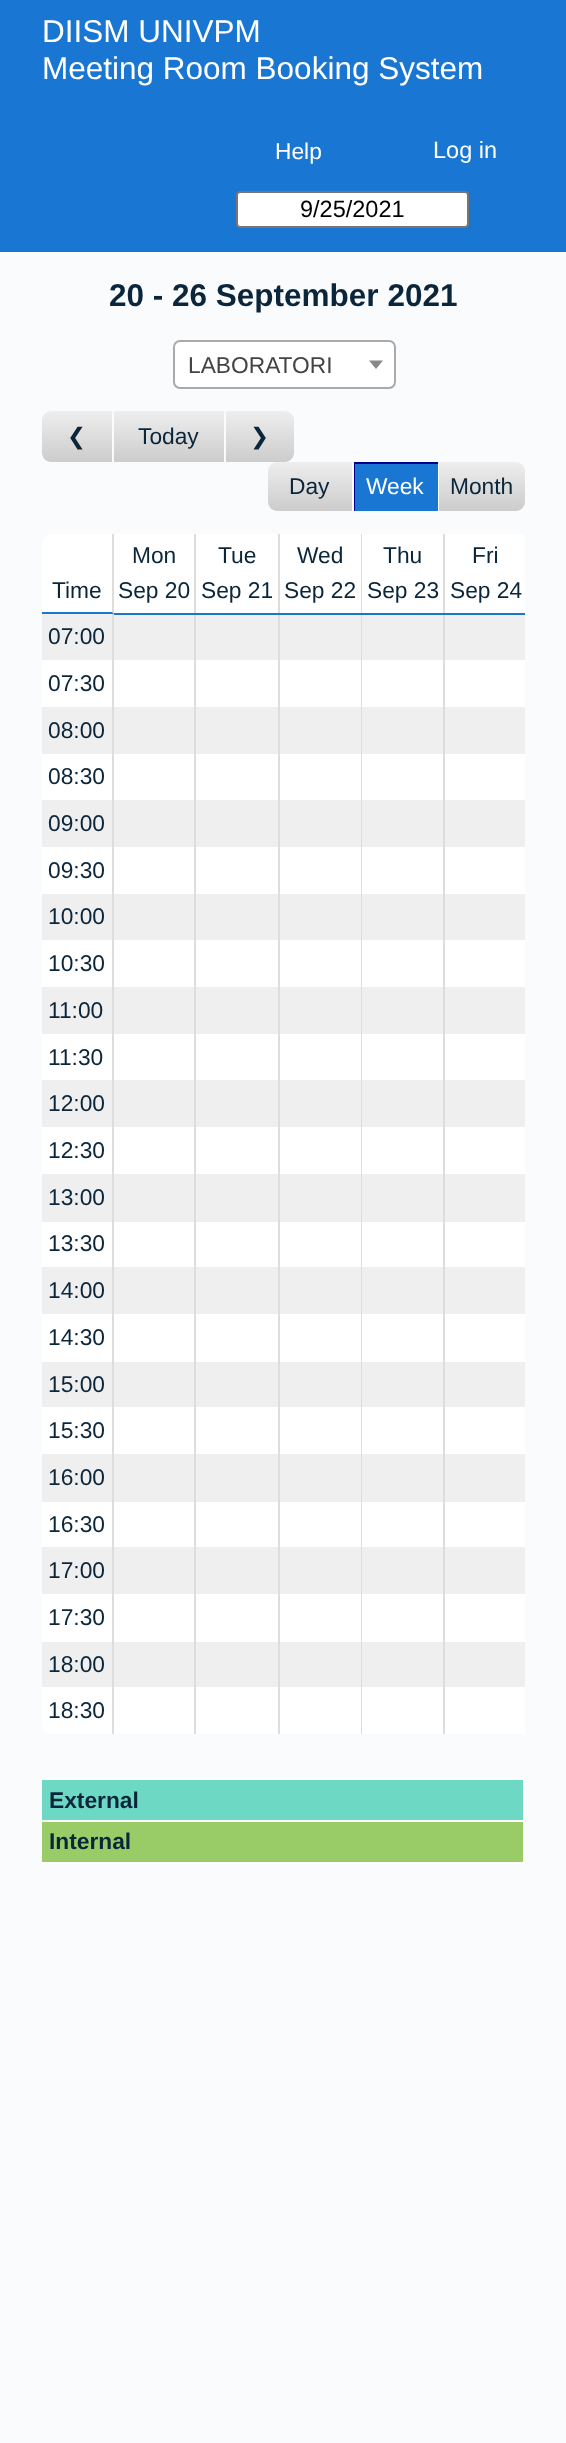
async function draw(canvas) {
	canvas.width = 566;
	canvas.height = 2443;
	const c = canvas.getContext('2d');
	c.miterLimit = 4;
	c.fontKerning = 'normal';
	let gradient;

	c.fillStyle = '#f9fbfc';
	c.fillRect(0, 0, 566, 2443);
	c.fillStyle = '#1976d2';
	c.fillRect(0, 0, 566, 252);
	c.font = '31.5px Liberation Sans';
	c.fillStyle = '#fff';
	c.fillText('DIISM UNIVPM', 42, 42);
	c.fillText('Meeting Room Booking System', 42, 79);
	c.font = '22.75px Liberation Sans';
	c.fillText('Help', 275, 159);
	c.font = '23.5px Liberation Sans';
	c.fillText('Log in', 433, 158);
	c.beginPath();
	c.roundRect(237, 192, 231, 35, 3);
	c.fill();
	c.strokeStyle = '#767676';
	c.lineWidth = 2;
	c.stroke();
	c.fillStyle = '#000';
	c.fillText('9/25/2021', 300, 217);
	c.font = 'bold 31.5px Liberation Sans';
	c.fillStyle = '#0b263b';
	c.fillText('20 - 26 September 2021', 109, 306);
	c.fillStyle = '#fff';
	c.beginPath();
	c.roundRect(174, 341, 221, 47, 6);
	c.fill();
	c.strokeStyle = '#aaa';
	c.stroke();
	c.font = '22.75px Liberation Sans';
	c.fillStyle = '#444';
	c.fillText('LABORATORI', 188, 373);
	c.fillStyle = '#888';
	c.beginPath();
	c.moveTo(369, 360.5);
	c.lineTo(383, 360.5);
	c.lineTo(376, 369);
	c.closePath();
	c.fill();
	gradient = c.createLinearGradient(77, 411, 77, 462);
	gradient.addColorStop(0, '#eee');
	gradient.addColorStop(1, '#ccc');
	c.fillStyle = gradient;
	c.beginPath();
	c.roundRect(42, 411, 72, 51, [9, 0, 0, 9]);
	c.fill();
	c.fillStyle = '#f9fbfc';
	c.fillRect(112, 411, 2, 51);
	c.font = '22.75px DejaVu Sans';
	c.fillStyle = '#0b263b';
	c.fillText('❮', 67, 444);
	gradient = c.createLinearGradient(169, 411, 169, 462);
	gradient.addColorStop(0, '#eee');
	gradient.addColorStop(1, '#ccc');
	c.fillStyle = gradient;
	c.fillRect(114, 411, 110, 51);
	c.font = '22.75px Liberation Sans';
	c.fillStyle = '#0b263b';
	c.fillText('Today', 138, 444);
	gradient = c.createLinearGradient(260, 411, 260, 462);
	gradient.addColorStop(0, '#eee');
	gradient.addColorStop(1, '#ccc');
	c.fillStyle = gradient;
	c.beginPath();
	c.roundRect(226, 411, 68, 51, [0, 9, 9, 0]);
	c.fill();
	c.font = '22.75px DejaVu Sans';
	c.fillStyle = '#0b263b';
	c.fillText('❯', 250, 444);
	gradient = c.createLinearGradient(310, 462, 310, 511);
	gradient.addColorStop(0, '#eee');
	gradient.addColorStop(1, '#ccc');
	c.fillStyle = gradient;
	c.beginPath();
	c.roundRect(268, 462, 86, 49, [9, 0, 0, 9]);
	c.fill();
	c.fillStyle = '#f9fbfc';
	c.fillRect(352, 462, 2, 49);
	c.font = '22.75px Liberation Sans';
	c.fillStyle = '#0b263b';
	c.fillText('Day', 289, 494);
	c.fillStyle = '#1976d2';
	c.fillRect(355, 464, 83, 47);
	c.save();
	c.beginPath();
	c.rect(354, 462, 84, 49);
	c.clip();
	c.fillStyle = '#00008b';
	c.beginPath();
	c.moveTo(180, 289);
	c.lineTo(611, 289);
	c.lineTo(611, 684);
	c.lineTo(180, 684);
	c.closePath();
	c.moveTo(355, 464);
	c.lineTo(439, 464);
	c.lineTo(439, 513);
	c.lineTo(355, 513);
	c.closePath();
	c.fill('evenodd');
	c.restore();
	c.fillStyle = '#fff';
	c.fillText('Week', 366, 494);
	gradient = c.createLinearGradient(482, 462, 482, 511);
	gradient.addColorStop(0, '#eee');
	gradient.addColorStop(1, '#ccc');
	c.fillStyle = gradient;
	c.beginPath();
	c.roundRect(439, 462, 86, 49, [0, 9, 9, 0]);
	c.fill();
	c.fillStyle = '#0b263b';
	c.fillText('Month', 450, 494);
	c.fillStyle = '#fff';
	c.beginPath();
	c.roundRect(42, 534, 70, 79, [9, 0, 0, 0]);
	c.fill();
	c.fillStyle = '#ddd';
	c.beginPath();
	c.moveTo(114, 614);
	c.lineTo(112, 612);
	c.lineTo(112, 534);
	c.lineTo(114, 534);
	c.closePath();
	c.fill();
	c.fillStyle = '#1976d2';
	c.beginPath();
	c.moveTo(42, 612);
	c.lineTo(42, 614);
	c.lineTo(114, 614);
	c.lineTo(112, 612);
	c.closePath();
	c.fill();
	c.fillStyle = '#0b263b';
	c.fillText('Time', 52, 598);
	for (const [x, y, w, h, color] of [
		[114, 534, 80, 79, '#fff'],
		[194, 534, 2, 1200, '#ddd'],
		[278, 534, 2, 1200, '#ddd'],
		[361, 534, 1, 1200, '#ddd'],
		[443, 534, 2, 1200, '#ddd'],
		[114, 613, 411, 2, '#1976d2'],
	]) {
		c.fillStyle = color;
		c.fillRect(x, y, w, h);
	}
	c.fillStyle = '#0b263b';
	c.fillText('Mon', 132, 563);
	c.fillText('Sep 20', 118, 598);
	c.fillStyle = '#fff';
	c.fillRect(196, 534, 82, 79);
	c.fillStyle = '#0b263b';
	c.fillText('Tue', 218, 563);
	c.fillText('Sep 21', 201, 598);
	c.fillStyle = '#fff';
	c.fillRect(280, 534, 81, 79);
	c.fillStyle = '#0b263b';
	c.fillText('Wed', 297, 563);
	c.fillText('Sep 22', 284, 598);
	c.fillStyle = '#fff';
	c.fillRect(362, 534, 81, 79);
	c.fillStyle = '#0b263b';
	c.fillText('Thu', 383, 563);
	c.fillText('Sep 23', 367, 598);
	c.fillStyle = '#fff';
	c.fillRect(445, 534, 80, 79);
	c.fillStyle = '#0b263b';
	c.fillText('Fri', 472, 563);
	c.fillText('Sep 24', 450, 598);
	c.fillStyle = '#efefef';
	c.fillRect(42, 614, 70, 46);
	c.fillStyle = '#ddd';
	c.fillRect(112, 614, 2, 1073);
	c.fillStyle = '#0b263b';
	c.fillText('07:00', 48, 644);
	for (const [x, y, w, h, color] of [
		[114, 615, 80, 45, '#efefef'],
		[196, 615, 82, 45, '#efefef'],
		[280, 615, 81, 45, '#efefef'],
		[362, 615, 81, 45, '#efefef'],
		[445, 615, 80, 45, '#efefef'],
		[42, 660, 70, 47, '#fff'],
	]) {
		c.fillStyle = color;
		c.fillRect(x, y, w, h);
	}
	c.fillStyle = '#0b263b';
	c.fillText('07:30', 48, 691);
	for (const [x, y, w, h, color] of [
		[114, 660, 80, 47, '#fff'],
		[196, 660, 82, 47, '#fff'],
		[280, 660, 81, 47, '#fff'],
		[362, 660, 81, 47, '#fff'],
		[445, 660, 80, 47, '#fff'],
		[42, 707, 70, 47, '#efefef'],
	]) {
		c.fillStyle = color;
		c.fillRect(x, y, w, h);
	}
	c.fillStyle = '#0b263b';
	c.fillText('08:00', 48, 738);
	for (const [x, y, w, h, color] of [
		[114, 707, 80, 47, '#efefef'],
		[196, 707, 82, 47, '#efefef'],
		[280, 707, 81, 47, '#efefef'],
		[362, 707, 81, 47, '#efefef'],
		[445, 707, 80, 47, '#efefef'],
		[42, 754, 70, 46, '#fff'],
	]) {
		c.fillStyle = color;
		c.fillRect(x, y, w, h);
	}
	c.fillStyle = '#0b263b';
	c.fillText('08:30', 48, 784);
	for (const [x, y, w, h, color] of [
		[114, 754, 80, 46, '#fff'],
		[196, 754, 82, 46, '#fff'],
		[280, 754, 81, 46, '#fff'],
		[362, 754, 81, 46, '#fff'],
		[445, 754, 80, 46, '#fff'],
		[42, 800, 70, 47, '#efefef'],
	]) {
		c.fillStyle = color;
		c.fillRect(x, y, w, h);
	}
	c.fillStyle = '#0b263b';
	c.fillText('09:00', 48, 831);
	for (const [x, y, w, h, color] of [
		[114, 800, 80, 47, '#efefef'],
		[196, 800, 82, 47, '#efefef'],
		[280, 800, 81, 47, '#efefef'],
		[362, 800, 81, 47, '#efefef'],
		[445, 800, 80, 47, '#efefef'],
		[42, 847, 70, 47, '#fff'],
	]) {
		c.fillStyle = color;
		c.fillRect(x, y, w, h);
	}
	c.fillStyle = '#0b263b';
	c.fillText('09:30', 48, 878);
	for (const [x, y, w, h, color] of [
		[114, 847, 80, 47, '#fff'],
		[196, 847, 82, 47, '#fff'],
		[280, 847, 81, 47, '#fff'],
		[362, 847, 81, 47, '#fff'],
		[445, 847, 80, 47, '#fff'],
		[42, 894, 70, 46, '#efefef'],
	]) {
		c.fillStyle = color;
		c.fillRect(x, y, w, h);
	}
	c.fillStyle = '#0b263b';
	c.fillText('10:00', 48, 924);
	for (const [x, y, w, h, color] of [
		[114, 894, 80, 46, '#efefef'],
		[196, 894, 82, 46, '#efefef'],
		[280, 894, 81, 46, '#efefef'],
		[362, 894, 81, 46, '#efefef'],
		[445, 894, 80, 46, '#efefef'],
		[42, 940, 70, 47, '#fff'],
	]) {
		c.fillStyle = color;
		c.fillRect(x, y, w, h);
	}
	c.fillStyle = '#0b263b';
	c.fillText('10:30', 48, 971);
	for (const [x, y, w, h, color] of [
		[114, 940, 80, 47, '#fff'],
		[196, 940, 82, 47, '#fff'],
		[280, 940, 81, 47, '#fff'],
		[362, 940, 81, 47, '#fff'],
		[445, 940, 80, 47, '#fff'],
		[42, 987, 70, 47, '#efefef'],
	]) {
		c.fillStyle = color;
		c.fillRect(x, y, w, h);
	}
	c.fillStyle = '#0b263b';
	c.fillText('11:00', 48, 1018);
	for (const [x, y, w, h, color] of [
		[114, 987, 80, 47, '#efefef'],
		[196, 987, 82, 47, '#efefef'],
		[280, 987, 81, 47, '#efefef'],
		[362, 987, 81, 47, '#efefef'],
		[445, 987, 80, 47, '#efefef'],
		[42, 1034, 70, 46, '#fff'],
	]) {
		c.fillStyle = color;
		c.fillRect(x, y, w, h);
	}
	c.fillStyle = '#0b263b';
	c.fillText('11:30', 48, 1065);
	for (const [x, y, w, h, color] of [
		[114, 1034, 80, 46, '#fff'],
		[196, 1034, 82, 46, '#fff'],
		[280, 1034, 81, 46, '#fff'],
		[362, 1034, 81, 46, '#fff'],
		[445, 1034, 80, 46, '#fff'],
		[42, 1080, 70, 47, '#efefef'],
	]) {
		c.fillStyle = color;
		c.fillRect(x, y, w, h);
	}
	c.fillStyle = '#0b263b';
	c.fillText('12:00', 48, 1111);
	for (const [x, y, w, h, color] of [
		[114, 1080, 80, 47, '#efefef'],
		[196, 1080, 82, 47, '#efefef'],
		[280, 1080, 81, 47, '#efefef'],
		[362, 1080, 81, 47, '#efefef'],
		[445, 1080, 80, 47, '#efefef'],
		[42, 1127, 70, 47, '#fff'],
	]) {
		c.fillStyle = color;
		c.fillRect(x, y, w, h);
	}
	c.fillStyle = '#0b263b';
	c.fillText('12:30', 48, 1158);
	for (const [x, y, w, h, color] of [
		[114, 1127, 80, 47, '#fff'],
		[196, 1127, 82, 47, '#fff'],
		[280, 1127, 81, 47, '#fff'],
		[362, 1127, 81, 47, '#fff'],
		[445, 1127, 80, 47, '#fff'],
		[42, 1174, 70, 48, '#efefef'],
	]) {
		c.fillStyle = color;
		c.fillRect(x, y, w, h);
	}
	c.fillStyle = '#0b263b';
	c.fillText('13:00', 48, 1205);
	for (const [x, y, w, h, color] of [
		[114, 1174, 80, 48, '#efefef'],
		[196, 1174, 82, 48, '#efefef'],
		[280, 1174, 81, 48, '#efefef'],
		[362, 1174, 81, 48, '#efefef'],
		[445, 1174, 80, 48, '#efefef'],
		[42, 1222, 70, 45, '#fff'],
	]) {
		c.fillStyle = color;
		c.fillRect(x, y, w, h);
	}
	c.fillStyle = '#0b263b';
	c.fillText('13:30', 48, 1251);
	for (const [x, y, w, h, color] of [
		[114, 1222, 80, 45, '#fff'],
		[196, 1222, 82, 45, '#fff'],
		[280, 1222, 81, 45, '#fff'],
		[362, 1222, 81, 45, '#fff'],
		[445, 1222, 80, 45, '#fff'],
		[42, 1267, 70, 47, '#efefef'],
	]) {
		c.fillStyle = color;
		c.fillRect(x, y, w, h);
	}
	c.fillStyle = '#0b263b';
	c.fillText('14:00', 48, 1298);
	for (const [x, y, w, h, color] of [
		[114, 1267, 80, 47, '#efefef'],
		[196, 1267, 82, 47, '#efefef'],
		[280, 1267, 81, 47, '#efefef'],
		[362, 1267, 81, 47, '#efefef'],
		[445, 1267, 80, 47, '#efefef'],
		[42, 1314, 70, 48, '#fff'],
	]) {
		c.fillStyle = color;
		c.fillRect(x, y, w, h);
	}
	c.fillStyle = '#0b263b';
	c.fillText('14:30', 48, 1345);
	for (const [x, y, w, h, color] of [
		[114, 1314, 80, 48, '#fff'],
		[196, 1314, 82, 48, '#fff'],
		[280, 1314, 81, 48, '#fff'],
		[362, 1314, 81, 48, '#fff'],
		[445, 1314, 80, 48, '#fff'],
		[42, 1362, 70, 45, '#efefef'],
	]) {
		c.fillStyle = color;
		c.fillRect(x, y, w, h);
	}
	c.fillStyle = '#0b263b';
	c.fillText('15:00', 48, 1392);
	for (const [x, y, w, h, color] of [
		[114, 1362, 80, 45, '#efefef'],
		[196, 1362, 82, 45, '#efefef'],
		[280, 1362, 81, 45, '#efefef'],
		[362, 1362, 81, 45, '#efefef'],
		[445, 1362, 80, 45, '#efefef'],
		[42, 1407, 70, 47, '#fff'],
	]) {
		c.fillStyle = color;
		c.fillRect(x, y, w, h);
	}
	c.fillStyle = '#0b263b';
	c.fillText('15:30', 48, 1438);
	for (const [x, y, w, h, color] of [
		[114, 1407, 80, 47, '#fff'],
		[196, 1407, 82, 47, '#fff'],
		[280, 1407, 81, 47, '#fff'],
		[362, 1407, 81, 47, '#fff'],
		[445, 1407, 80, 47, '#fff'],
		[42, 1454, 70, 48, '#efefef'],
	]) {
		c.fillStyle = color;
		c.fillRect(x, y, w, h);
	}
	c.fillStyle = '#0b263b';
	c.fillText('16:00', 48, 1485);
	for (const [x, y, w, h, color] of [
		[114, 1454, 80, 48, '#efefef'],
		[196, 1454, 82, 48, '#efefef'],
		[280, 1454, 81, 48, '#efefef'],
		[362, 1454, 81, 48, '#efefef'],
		[445, 1454, 80, 48, '#efefef'],
		[42, 1502, 70, 45, '#fff'],
	]) {
		c.fillStyle = color;
		c.fillRect(x, y, w, h);
	}
	c.fillStyle = '#0b263b';
	c.fillText('16:30', 48, 1532);
	for (const [x, y, w, h, color] of [
		[114, 1502, 80, 45, '#fff'],
		[196, 1502, 82, 45, '#fff'],
		[280, 1502, 81, 45, '#fff'],
		[362, 1502, 81, 45, '#fff'],
		[445, 1502, 80, 45, '#fff'],
		[42, 1547, 70, 47, '#efefef'],
	]) {
		c.fillStyle = color;
		c.fillRect(x, y, w, h);
	}
	c.fillStyle = '#0b263b';
	c.fillText('17:00', 48, 1578);
	for (const [x, y, w, h, color] of [
		[114, 1547, 80, 47, '#efefef'],
		[196, 1547, 82, 47, '#efefef'],
		[280, 1547, 81, 47, '#efefef'],
		[362, 1547, 81, 47, '#efefef'],
		[445, 1547, 80, 47, '#efefef'],
		[42, 1594, 70, 48, '#fff'],
	]) {
		c.fillStyle = color;
		c.fillRect(x, y, w, h);
	}
	c.fillStyle = '#0b263b';
	c.fillText('17:30', 48, 1625);
	for (const [x, y, w, h, color] of [
		[114, 1594, 80, 48, '#fff'],
		[196, 1594, 82, 48, '#fff'],
		[280, 1594, 81, 48, '#fff'],
		[362, 1594, 81, 48, '#fff'],
		[445, 1594, 80, 48, '#fff'],
		[42, 1642, 70, 45, '#efefef'],
	]) {
		c.fillStyle = color;
		c.fillRect(x, y, w, h);
	}
	c.fillStyle = '#0b263b';
	c.fillText('18:00', 48, 1672);
	for (const [x, y, w, h, color] of [
		[114, 1642, 80, 45, '#efefef'],
		[196, 1642, 82, 45, '#efefef'],
		[280, 1642, 81, 45, '#efefef'],
		[362, 1642, 81, 45, '#efefef'],
		[445, 1642, 80, 45, '#efefef'],
	]) {
		c.fillStyle = color;
		c.fillRect(x, y, w, h);
	}
	c.fillStyle = '#fff';
	c.beginPath();
	c.roundRect(42, 1687, 72, 47, [0, 0, 0, 9]);
	c.fill();
	c.fillStyle = '#ddd';
	c.fillRect(112, 1687, 2, 47);
	c.fillStyle = '#0b263b';
	c.fillText('18:30', 48, 1718);
	for (const [x, y, w, h, color] of [
		[114, 1687, 80, 47, '#fff'],
		[196, 1687, 82, 47, '#fff'],
		[280, 1687, 81, 47, '#fff'],
		[362, 1687, 81, 47, '#fff'],
		[445, 1687, 80, 47, '#fff'],
		[42, 1780, 481, 40, '#6dd9c4'],
	]) {
		c.fillStyle = color;
		c.fillRect(x, y, w, h);
	}
	c.save();
	c.beginPath();
	c.rect(42, 252, 483, 1612);
	c.clip();
	c.strokeStyle = '#fff';
	c.strokeRect(41, 1779, 483, 42);
	c.restore();
	c.font = 'bold 22.75px Liberation Sans';
	c.fillStyle = '#0b263b';
	c.fillText('External', 49, 1808);
	c.fillStyle = '#9c6';
	c.fillRect(42, 1822, 481, 40);
	c.save();
	c.beginPath();
	c.rect(42, 252, 483, 1612);
	c.clip();
	c.strokeStyle = '#fff';
	c.strokeRect(41, 1821, 483, 42);
	c.restore();
	c.fillStyle = '#0b263b';
	c.fillText('Internal', 49, 1849);
}

draw(document.querySelector('canvas'));
